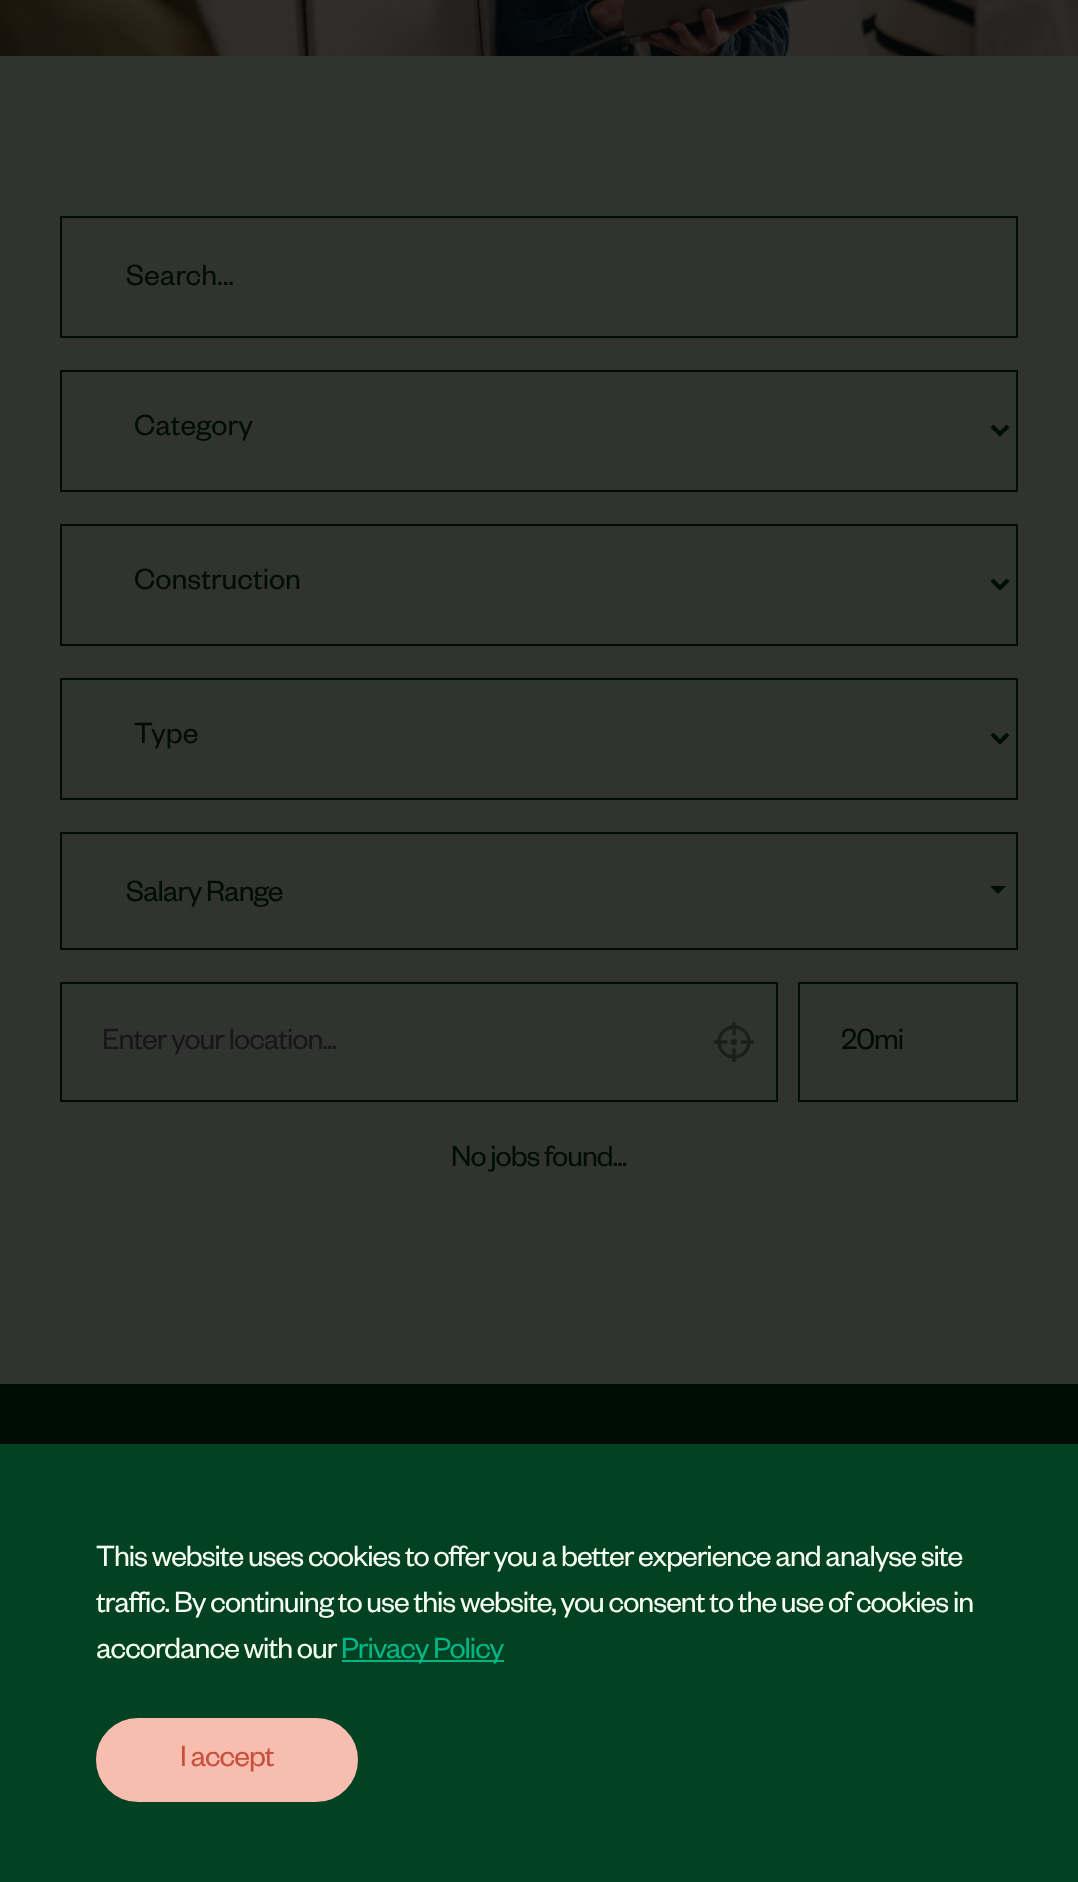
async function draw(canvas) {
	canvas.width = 1078;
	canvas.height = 1882;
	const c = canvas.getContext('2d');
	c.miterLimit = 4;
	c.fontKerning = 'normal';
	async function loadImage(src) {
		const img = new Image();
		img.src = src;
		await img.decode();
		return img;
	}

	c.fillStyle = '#313330';
	c.fillRect(0, 0, 1078, 1882);
	c.drawImage(await loadImage('img1.png'), 0, 0, 1078, 56);
	c.strokeStyle = '#000d07';
	c.lineWidth = 2;
	c.strokeRect(61, 217, 956, 120);
	c.font = '32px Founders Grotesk';
	c.fillStyle = '#000d07';
	c.fillText('Search...', 126, 285);
	c.strokeRect(61, 371, 956, 120);
	c.beginPath();
	c.moveTo(992, 426);
	c.lineTo(1000, 434);
	c.lineTo(1008, 426);
	c.lineWidth = 4;
	c.stroke();
	c.fillText('Category', 134, 435);
	c.lineWidth = 2;
	c.strokeRect(61, 525, 956, 120);
	c.beginPath();
	c.moveTo(992, 580);
	c.lineTo(1000, 588);
	c.lineTo(1008, 580);
	c.lineWidth = 4;
	c.stroke();
	c.fillText('Construction', 134, 589);
	c.lineWidth = 2;
	c.strokeRect(61, 679, 956, 120);
	c.beginPath();
	c.moveTo(992, 734);
	c.lineTo(1000, 742);
	c.lineTo(1008, 734);
	c.lineWidth = 4;
	c.stroke();
	c.fillText('Type', 134, 743);
	c.lineWidth = 2;
	c.strokeRect(61, 833, 956, 116);
	c.letterSpacing = '-1px';
	c.fillText('Salary Range', 126, 901);
	c.beginPath();
	c.moveTo(990, 886);
	c.lineTo(1006, 886);
	c.lineTo(998, 894);
	c.closePath();
	c.fill();
	c.strokeRect(61, 983, 716, 118);
	c.fillStyle = '#171717';
	c.fillText('Enter your location...', 102, 1049);
	c.drawImage(await loadImage('img2.png'), 714, 1022, 40, 40);
	c.strokeRect(799, 983, 218, 118);
	c.fillStyle = '#000d07';
	c.fillText('20mi', 841, 1049);
	c.fillText('No jobs found...', 451, 1166);
	c.fillRect(0, 1384, 1078, 60);
	c.fillStyle = '#024122';
	c.fillRect(0, 1444, 1078, 438);
	c.fillStyle = '#f7fff2';
	for (const [text, x, y] of [
		['This website uses cookies to offer you a better experience and analyse site', 96, 1566],
		['traffic. By continuing to use this website, you consent to the use of cookies in', 96, 1612],
		['accordance with our', 96, 1658],
	]) {
		c.fillText(text, x, y);
	}
	c.fillStyle = '#01b685';
	c.fillRect(342, 1660, 162, 2);
	c.fillText('Privacy Policy', 341, 1658);
	c.fillStyle = '#f7bdaf';
	c.beginPath();
	c.roundRect(98, 1720, 258, 80, 40);
	c.fill();
	c.strokeStyle = '#f7bdaf';
	c.lineWidth = 4;
	c.stroke();
	c.fillStyle = '#c8503f';
	c.fillText('I accept', 180, 1766);
}

draw(document.querySelector('canvas'));
